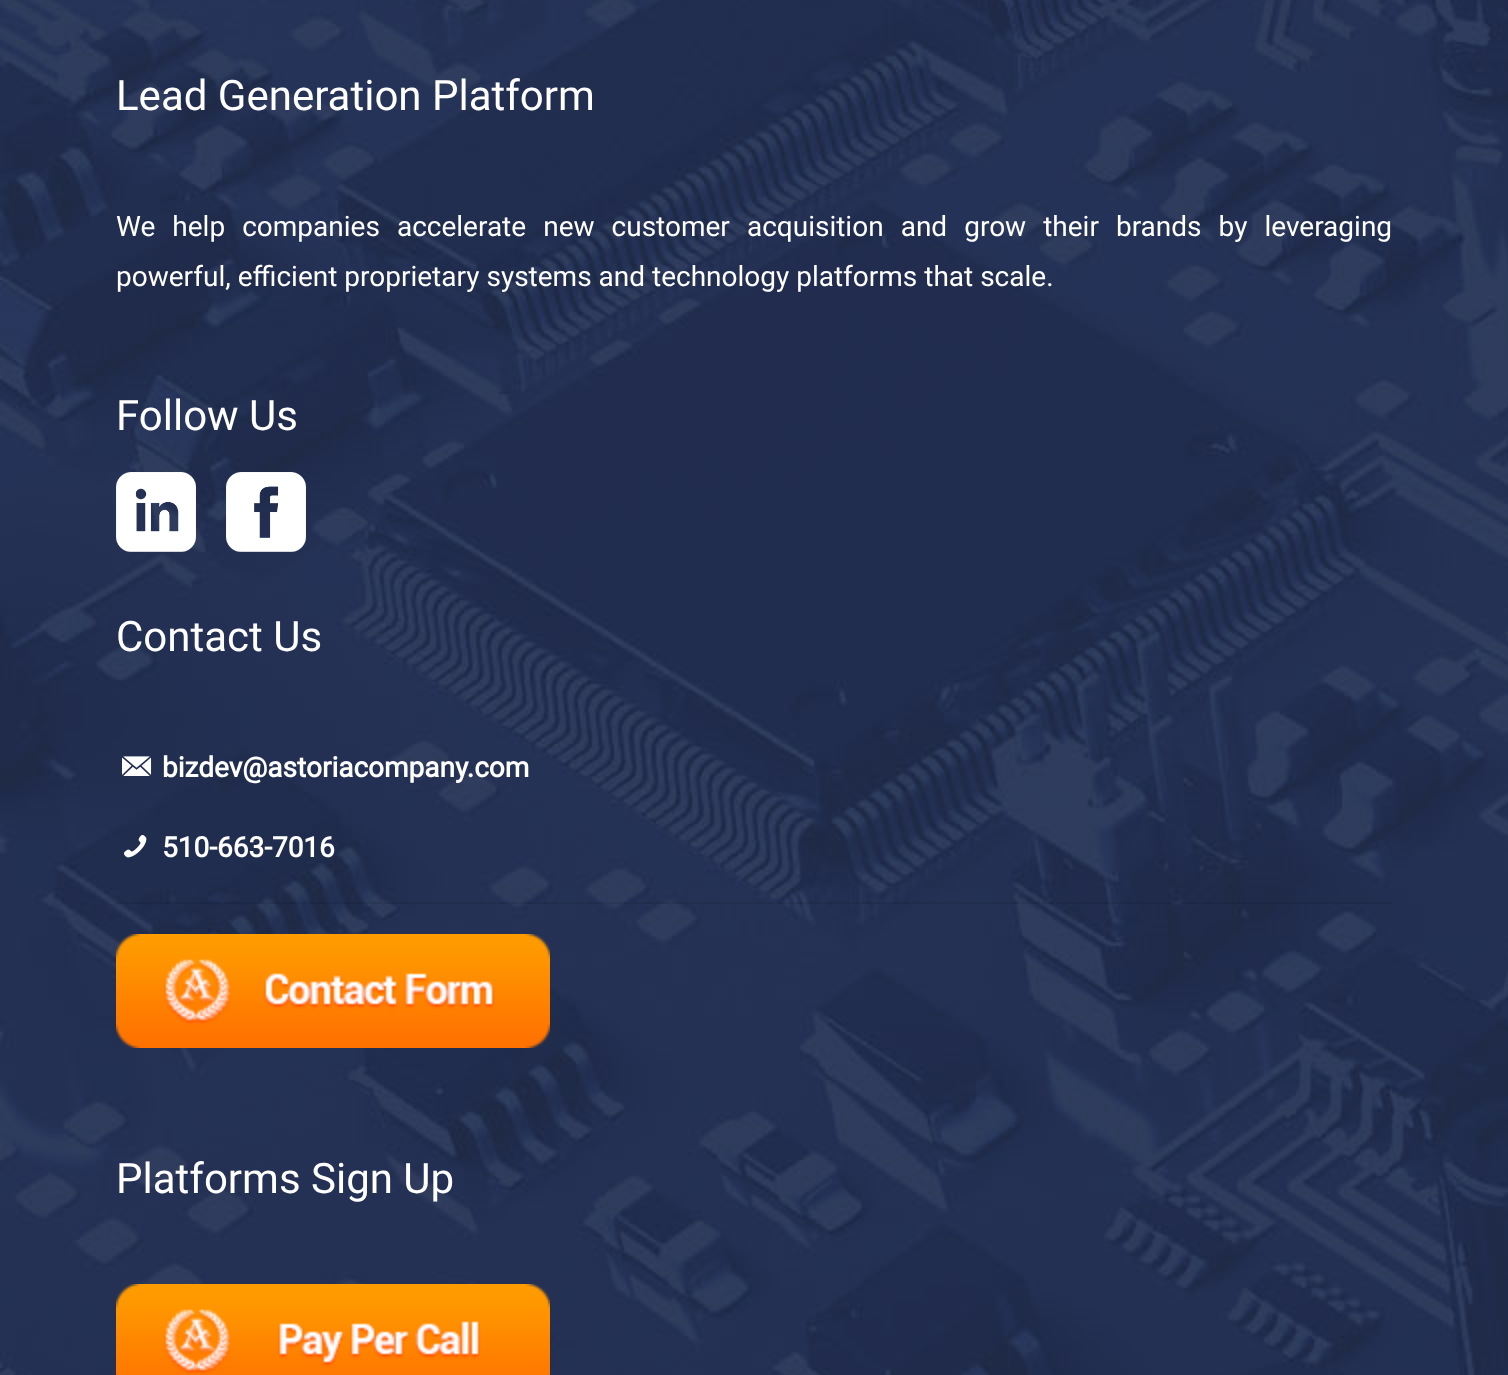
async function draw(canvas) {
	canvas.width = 1508;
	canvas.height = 1375;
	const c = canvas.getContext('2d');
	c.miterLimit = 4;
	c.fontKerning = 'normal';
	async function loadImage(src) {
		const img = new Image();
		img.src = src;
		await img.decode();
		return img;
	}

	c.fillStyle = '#fff';
	c.fillRect(0, 0, 1508, 1375);
	c.drawImage(await loadImage('img1.png'), 0, 0, 1508, 1375);
	c.font = '42px Roboto';
	c.fillText('Lead Generation Platform', 116, 110);
	c.wordSpacing = '10.1px';
	c.font = '28px Roboto';
	c.fillText('We help companies accelerate new customer acquisition and grow their brands by leveraging', 116, 236);
	c.wordSpacing = '0px';
	c.fillText('powerful, efficient proprietary systems and technology platforms that scale.', 116, 286);
	c.font = '42px Roboto';
	c.fillText('Follow Us', 116, 430);
	c.drawImage(await loadImage('img2.png'), 116, 472, 80, 80);
	c.drawImage(await loadImage('img3.png'), 226, 472, 80, 80);
	c.fillText('Contact Us', 116, 651);
	c.drawImage(await loadImage('img4.png'), 122, 756, 30, 20);
	c.font = 'bold 28px Roboto';
	c.fillText('bizdev@astoriacompany.com', 162, 777);
	c.drawImage(await loadImage('img5.png'), 124, 835, 23, 23);
	c.fillText('510-663-7016', 162, 857);
	c.fillStyle = '#00000014';
	c.fillRect(116, 902, 1276, 2);
	c.drawImage(await loadImage('img6.png'), 116, 934, 434, 114);
	c.font = '42px Roboto';
	c.fillStyle = '#fff';
	c.fillText('Platforms Sign Up', 116, 1193);
	c.drawImage(await loadImage('img7.png'), 116, 1284, 434, 91);
}

draw(document.querySelector('canvas'));
